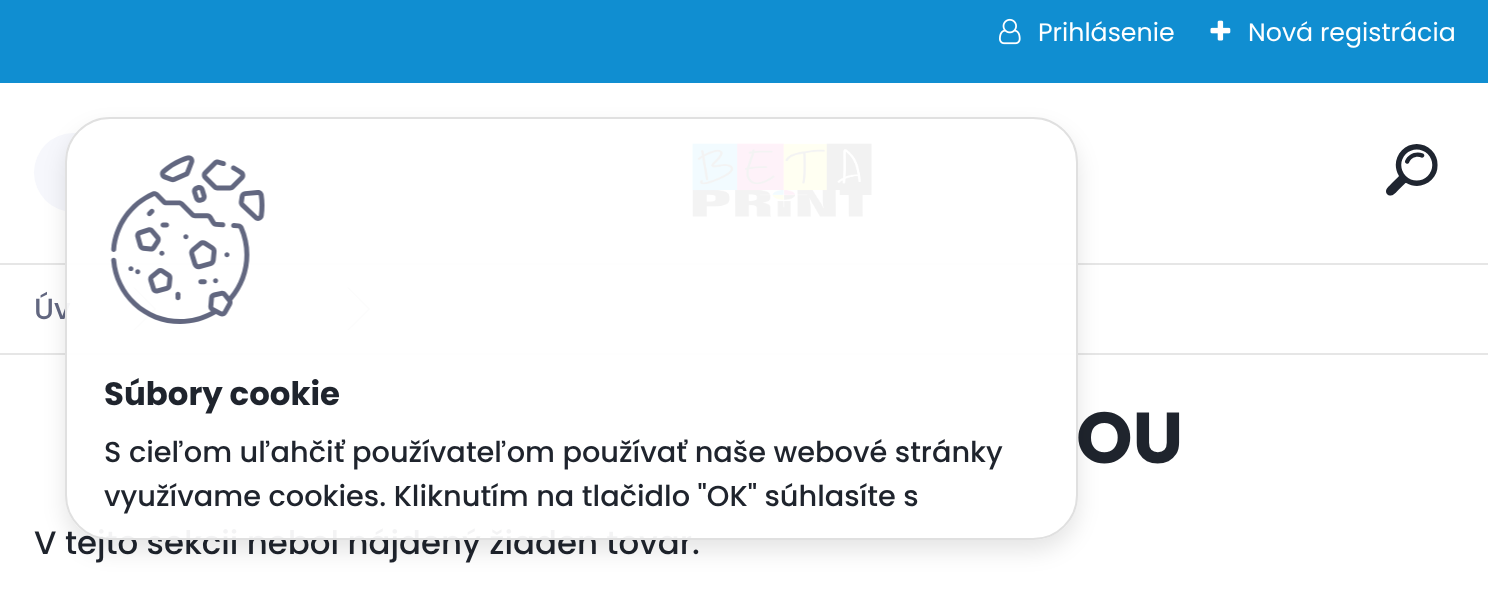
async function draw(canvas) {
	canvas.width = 1488;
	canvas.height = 604;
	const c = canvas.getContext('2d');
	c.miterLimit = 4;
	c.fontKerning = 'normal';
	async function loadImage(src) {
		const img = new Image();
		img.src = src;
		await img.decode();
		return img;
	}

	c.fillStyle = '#fff';
	c.fillRect(0, 0, 1488, 604);
	c.fillStyle = '#108ed1';
	c.fillRect(0, 0, 1488, 83);
	c.drawImage(await loadImage('img1.png'), 999, 18, 22, 27);
	c.font = '25.25px Poppins';
	c.fillStyle = '#fff';
	c.fillText('Prihlásenie', 1038, 41);
	c.drawImage(await loadImage('img2.png'), 1210, 20, 21, 21);
	c.fillText('Nová registrácia', 1248, 41);
	c.fillStyle = '#e6e6e6';
	c.fillRect(0, 263, 1488, 2);
	c.fillStyle = '#f6f7fc';
	c.beginPath();
	c.roundRect(34, 133, 162, 79, 39.5);
	c.fill();
	c.drawImage(await loadImage('img3.png'), 692, 143, 180, 74);
	c.drawImage(await loadImage('img4.png'), 1386, 144, 52, 52);
	c.fillStyle = '#e6e6e6';
	c.fillRect(0, 353, 1488, 2);
	c.font = '500 29px Poppins';
	c.fillStyle = '#626780';
	c.fillText('Úv', 34, 319);
	c.fillStyle = '#c3c3c3';
	c.beginPath();
	c.moveTo(133, 287.5);
	c.lineTo(135, 287.5);
	c.lineTo(156.5, 309);
	c.lineTo(154, 309);
	c.closePath();
	c.moveTo(154, 309);
	c.lineTo(156.5, 309);
	c.lineTo(135, 330);
	c.lineTo(133, 330);
	c.closePath();
	c.fill();
	c.beginPath();
	c.moveTo(347, 287.5);
	c.lineTo(349, 287.5);
	c.lineTo(370.5, 309);
	c.lineTo(368, 309);
	c.closePath();
	c.moveTo(368, 309);
	c.lineTo(370.5, 309);
	c.lineTo(349, 330);
	c.lineTo(347, 330);
	c.closePath();
	c.fill();
	c.font = 'bold 72px Poppins';
	c.fillStyle = '#1f242d';
	c.fillText('OU', 1076, 463);
	c.font = '500 32.4px Poppins';
	c.fillText('V tejto sekcii nebol nájdený žiaden tovar.', 34, 554);
	c.save();
	c.beginPath();
	c.moveTo(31, 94);
	c.lineTo(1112, 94);
	c.lineTo(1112, 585);
	c.lineTo(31, 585);
	c.closePath();
	c.moveTo(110, 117);
	c.lineTo(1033, 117);
	c.bezierCurveTo(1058, 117, 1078, 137, 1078, 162);
	c.lineTo(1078, 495);
	c.bezierCurveTo(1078, 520, 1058, 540, 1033, 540);
	c.lineTo(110, 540);
	c.bezierCurveTo(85, 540, 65, 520, 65, 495);
	c.lineTo(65, 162);
	c.bezierCurveTo(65, 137, 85, 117, 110, 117);
	c.closePath();
	c.clip('evenodd');
	c.fillStyle = '#0000001a';
	c.filter = 'blur(11px)';
	c.beginPath();
	c.roundRect(65, 128, 1013, 423, 45);
	c.fill();
	c.filter = 'none';
	c.restore();
	c.fillStyle = '#fffffff2';
	c.beginPath();
	c.roundRect(66, 118, 1011, 421, 44);
	c.fill();
	c.strokeStyle = '#e0e0e0';
	c.lineWidth = 2;
	c.stroke();
	c.drawImage(await loadImage('img5.png'), 110, 155, 155, 169);
	c.font = 'bold 32.4px Poppins';
	c.fillStyle = '#1f242d';
	c.fillText('Súbory cookie', 104, 405);
	c.font = '500 28.8px Poppins';
	c.fillText('S cieľom uľahčiť používateľom používať naše webové stránky', 104, 462);
	c.fillText('využívame cookies. Kliknutím na tlačidlo "OK" súhlasíte s', 104, 506);
}

draw(document.querySelector('canvas'));
